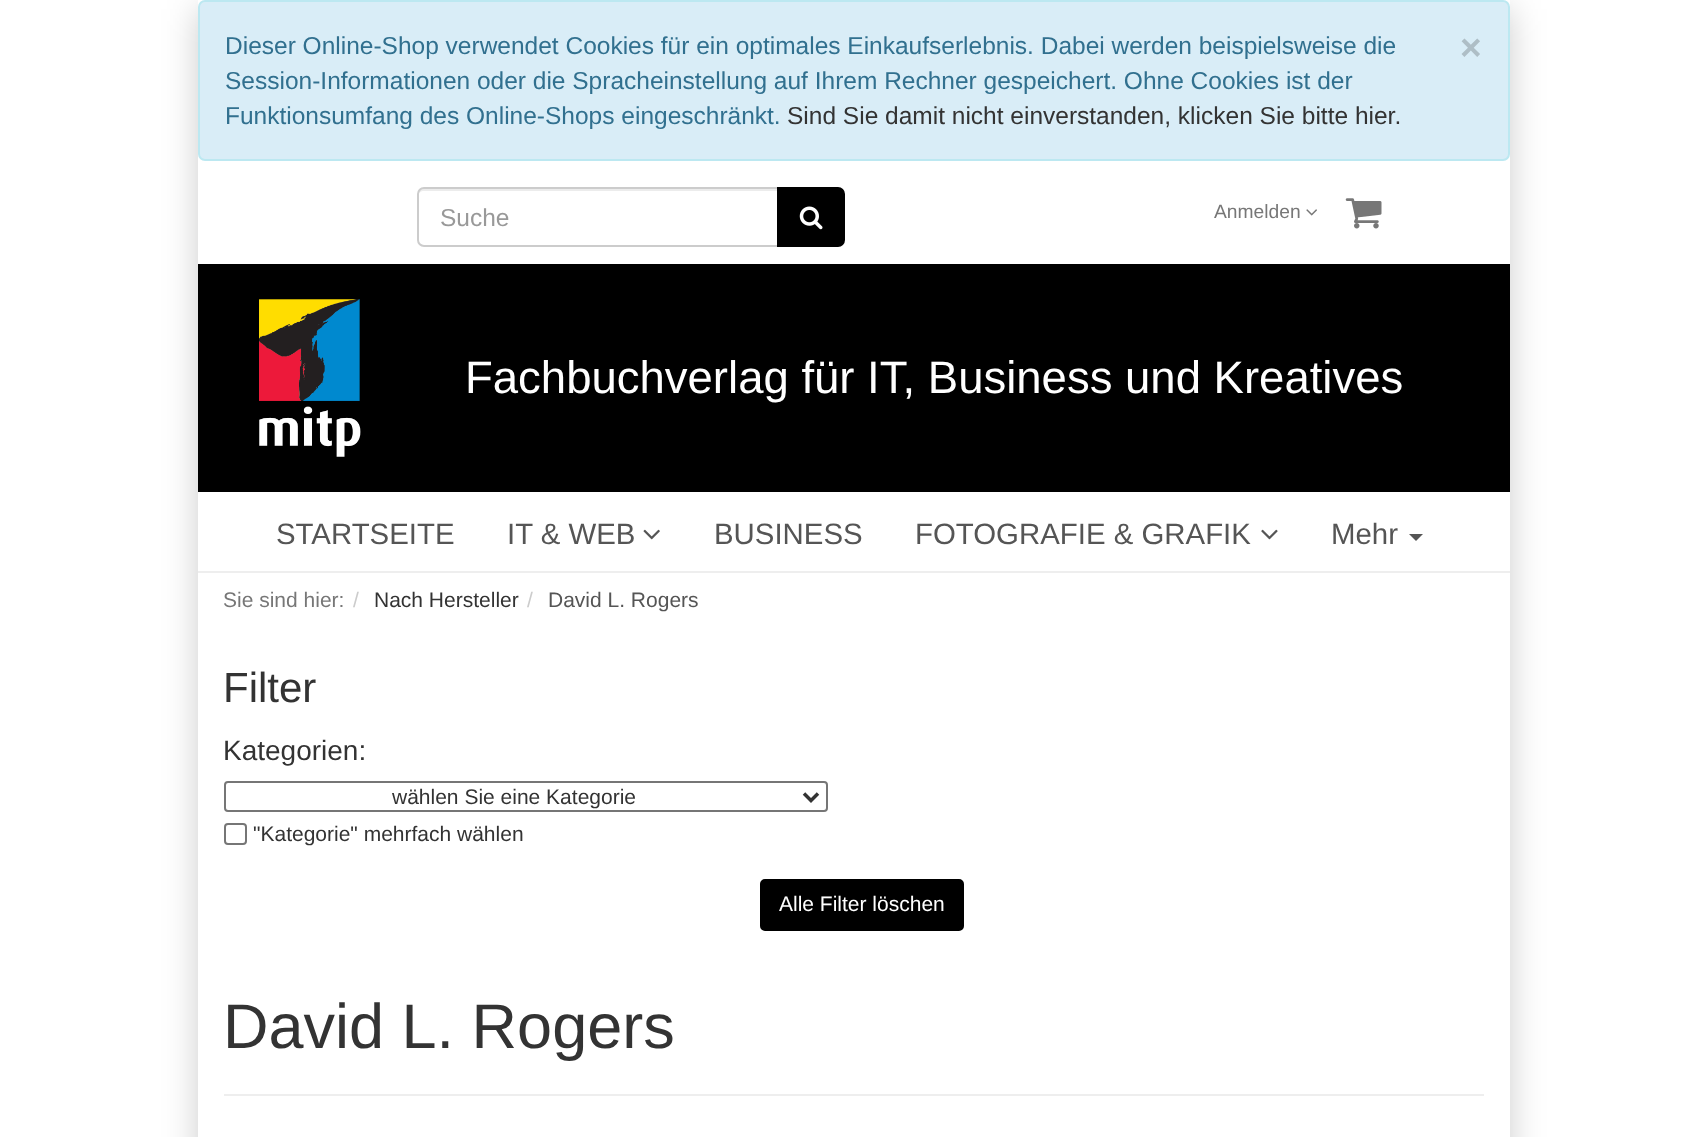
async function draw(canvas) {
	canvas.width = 1705;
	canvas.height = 1137;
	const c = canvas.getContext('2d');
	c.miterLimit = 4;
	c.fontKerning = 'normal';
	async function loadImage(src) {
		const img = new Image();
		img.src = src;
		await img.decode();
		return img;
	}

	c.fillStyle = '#fff';
	c.fillRect(0, 0, 1705, 1137);
	c.save();
	c.beginPath();
	c.moveTo(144, 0);
	c.lineTo(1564, 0);
	c.lineTo(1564, 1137);
	c.lineTo(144, 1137);
	c.closePath();
	c.moveTo(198, 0);
	c.lineTo(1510, 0);
	c.lineTo(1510, 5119);
	c.lineTo(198, 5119);
	c.closePath();
	c.clip('evenodd');
	c.fillStyle = '#00000033';
	c.filter = 'blur(17.5px)';
	c.beginPath();
	c.rect(198, 9, 1312, 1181);
	c.fill();
	c.filter = 'none';
	c.restore();
	c.fillStyle = '#d9edf7';
	c.beginPath();
	c.roundRect(199, 1, 1310, 159, 6);
	c.fill();
	c.strokeStyle = '#bce8f1';
	c.lineWidth = 2;
	c.stroke();
	c.font = '24.5px Liberation Sans';
	c.fillStyle = '#31708f';
	c.fillText('Dieser Online-Shop verwendet Cookies für ein optimales Einkaufserlebnis. Dabei werden beispielsweise die', 225, 54);
	c.font = 'bold 37px Liberation Sans';
	c.fillStyle = '#aebec6';
	c.fillText('×', 1460, 60);
	c.font = '24.5px Liberation Sans';
	c.fillStyle = '#31708f';
	c.fillText('Session-Informationen oder die Spracheinstellung auf Ihrem Rechner gespeichert. Ohne Cookies ist der', 225, 89);
	c.fillText('Funktionsumfang des Online-Shops eingeschränkt.', 225, 124);
	c.fillStyle = '#333';
	c.fillText('Sind Sie damit nicht einverstanden, klicken Sie bitte hier.', 787, 124);
	c.fillStyle = '#ececec';
	c.beginPath();
	c.moveTo(424, 191);
	c.lineTo(777, 191);
	c.lineTo(777, 189);
	c.lineTo(423, 189);
	c.bezierCurveTo(419, 189, 418, 193, 418, 196);
	c.bezierCurveTo(418, 193, 421, 191, 424, 191);
	c.closePath();
	c.fill();
	c.beginPath();
	c.roundRect(418, 188, 360, 58, [6, 0, 0, 6]);
	c.strokeStyle = '#ccc';
	c.stroke();
	c.fillStyle = '#999';
	c.fillText('Suche', 440, 226);
	c.fillStyle = '#000';
	c.beginPath();
	c.roundRect(778, 188, 66, 58, [0, 6, 6, 0]);
	c.fill();
	c.strokeStyle = '#000';
	c.stroke();
	c.drawImage(await loadImage('img1.png'), 799, 206, 24, 24);
	c.font = '19.25px Liberation Sans';
	c.fillStyle = '#777';
	c.fillText('Anmelden', 1214, 218);
	c.drawImage(await loadImage('img2.png'), 1306, 209, 11, 7);
	c.drawImage(await loadImage('img3.png'), 1345, 198, 37, 31);
	c.fillStyle = '#000';
	c.fillRect(198, 264, 1312, 228);
	c.drawImage(await loadImage('img4.png'), 259, 299, 102, 158);
	c.font = '45.5px Liberation Sans';
	c.fillStyle = '#fff';
	c.fillText('Fachbuchverlag für IT, Business und Kreatives', 465, 393);
	c.fillStyle = '#eee';
	c.fillRect(198, 571, 1312, 2);
	c.font = '29.4px Liberation Sans';
	c.fillStyle = '#555';
	c.fillText('STARTSEITE', 276, 544);
	c.fillText('IT & WEB', 507, 544);
	c.drawImage(await loadImage('img5.png'), 643, 529, 17, 11);
	c.fillText('BUSINESS', 714, 544);
	c.fillText('FOTOGRAFIE & GRAFIK', 915, 544);
	c.drawImage(await loadImage('img6.png'), 1261, 529, 17, 11);
	c.fillText('Mehr', 1331, 544);
	c.beginPath();
	c.moveTo(1409, 534);
	c.lineTo(1423, 534);
	c.lineTo(1416, 541);
	c.closePath();
	c.fill();
	c.font = '21px Liberation Sans';
	c.fillStyle = '#777';
	c.fillText('Sie sind hier:', 223, 607);
	c.fillStyle = '#ccc';
	c.fillText('/', 353, 607);
	c.fillStyle = '#333';
	c.fillText('Nach Hersteller', 374, 607);
	c.fillStyle = '#ccc';
	c.fillText('/', 527, 607);
	c.fillStyle = '#555';
	c.fillText('David L. Rogers', 548, 607);
	c.font = '42px Liberation Sans';
	c.fillStyle = '#333';
	c.fillText('Filter', 223, 702);
	c.font = '28px Liberation Sans';
	c.fillText('Kategorien:', 223, 760);
	c.beginPath();
	c.roundRect(225, 782, 602, 29, 3);
	c.strokeStyle = '#767676';
	c.stroke();
	c.beginPath();
	c.moveTo(804, 793.5);
	c.lineTo(811, 800.5);
	c.lineTo(818, 793.5);
	c.strokeStyle = '#333';
	c.lineWidth = 3.5;
	c.stroke();
	c.font = '21px Liberation Sans';
	c.fillText('wählen Sie eine Kategorie', 392, 804);
	c.beginPath();
	c.roundRect(225, 824, 21, 20, 3);
	c.strokeStyle = '#767676';
	c.lineWidth = 2;
	c.stroke();
	c.fillText('"Kategorie" mehrfach wählen', 253, 841);
	c.fillStyle = '#000';
	c.beginPath();
	c.roundRect(761, 880, 202, 50, 4);
	c.fill();
	c.strokeStyle = '#000';
	c.stroke();
	c.fillStyle = '#fff';
	c.fillText('Alle Filter löschen', 779, 911);
	c.fillStyle = '#eee';
	c.fillRect(224, 1094, 1260, 2);
	c.font = '63px Liberation Sans';
	c.fillStyle = '#333';
	c.fillText('David L. Rogers', 223, 1048);
}

draw(document.querySelector('canvas'));
